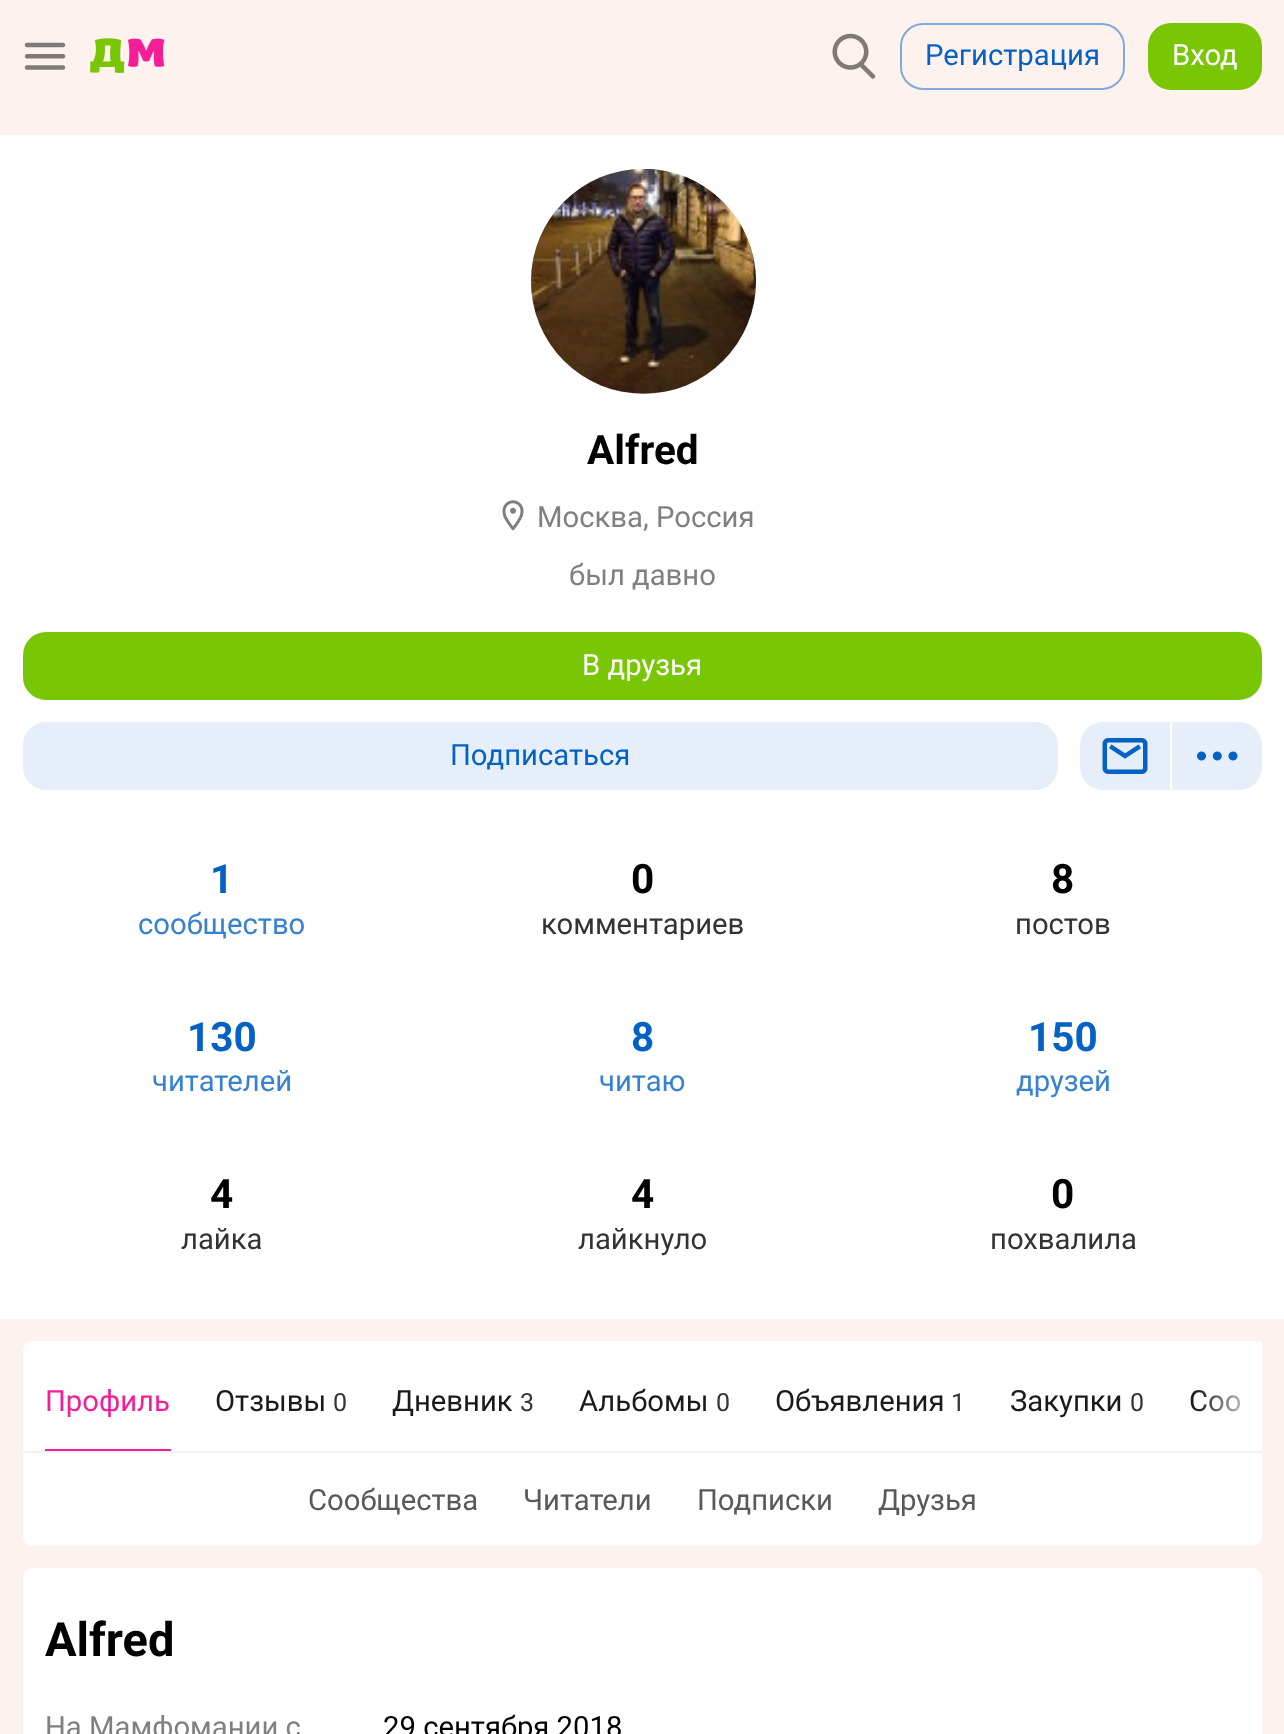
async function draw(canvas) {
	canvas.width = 1284;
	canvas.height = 1734;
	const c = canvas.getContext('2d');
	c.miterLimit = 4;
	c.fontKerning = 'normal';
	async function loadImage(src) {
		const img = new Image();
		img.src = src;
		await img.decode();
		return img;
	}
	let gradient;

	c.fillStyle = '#fef2ee';
	c.fillRect(0, 0, 1284, 1734);
	c.drawImage(await loadImage('img1.png'), 24, 42, 42, 28);
	c.drawImage(await loadImage('img2.png'), 90, 38, 75, 35);
	c.drawImage(await loadImage('img3.png'), 832, 33, 44, 46);
	c.beginPath();
	c.roundRect(901, 24, 223, 65, 22);
	c.strokeStyle = '#81aada';
	c.lineWidth = 2;
	c.stroke();
	c.font = '29.25px Roboto';
	c.fillStyle = '#0462c6';
	c.fillText('Регистрация', 925, 65);
	c.fillStyle = '#78c604';
	c.beginPath();
	c.roundRect(1149, 24, 112, 65, 22);
	c.fill();
	c.strokeStyle = '#78c604';
	c.stroke();
	c.fillStyle = '#fff';
	c.fillText('Вход', 1172, 65);
	c.fillRect(0, 135, 1284, 1184);
	c.fillStyle = '#dcb1b1';
	c.beginPath();
	c.arc(643.5, 281.5, 112.5, 0, 2 * Math.PI);
	c.fill();
	c.drawImage(await loadImage('img4.png'), 531, 168, 225, 226);
	c.font = 'bold 40.5px Roboto';
	c.fillStyle = '#000';
	c.fillText('Alfred', 587, 464);
	c.drawImage(await loadImage('img5.png'), 502, 500, 22, 31);
	c.font = '29.25px Roboto';
	c.fillStyle = '#808080';
	c.fillText('Москва, Россия', 537, 527);
	c.fillText('был давно', 569, 585);
	c.fillStyle = '#78c604';
	c.beginPath();
	c.roundRect(24, 633, 1237, 66, 22);
	c.fill();
	c.stroke();
	c.fillStyle = '#fff';
	c.fillText('В друзья', 582, 675);
	c.fillStyle = '#e6eff9';
	c.beginPath();
	c.roundRect(23, 722, 1035, 68, 23);
	c.fill();
	c.fillStyle = '#0462c6';
	c.fillText('Подписаться', 450, 765);
	c.fillStyle = '#e6eff9';
	c.beginPath();
	c.roundRect(1080, 722, 90, 68, [23, 0, 0, 23]);
	c.fill();
	c.drawImage(await loadImage('img6.png'), 1102, 738, 46, 36);
	c.beginPath();
	c.roundRect(1172, 722, 90, 68, [0, 23, 23, 0]);
	c.fill();
	c.drawImage(await loadImage('img7.png'), 1197, 751, 41, 10);
	c.font = 'bold 40.5px Roboto';
	c.fillStyle = '#0462c6';
	c.fillText('1', 210, 893);
	c.font = '29.25px Roboto';
	c.fillStyle = '#3681d1';
	c.fillText('сообщество', 138, 934);
	c.font = 'bold 40.5px Roboto';
	c.fillStyle = '#000';
	c.fillText('0', 631, 893);
	c.font = '29.25px Roboto';
	c.fillStyle = '#333';
	c.fillText('комментариев', 541, 934);
	c.font = 'bold 40.5px Roboto';
	c.fillStyle = '#000';
	c.fillText('8', 1051, 893);
	c.font = '29.25px Roboto';
	c.fillStyle = '#333';
	c.fillText('постов', 1015, 934);
	c.font = 'bold 40.5px Roboto';
	c.fillStyle = '#0462c6';
	c.fillText('130', 187, 1051);
	c.font = '29.25px Roboto';
	c.fillStyle = '#3681d1';
	c.fillText('читателей', 152, 1091);
	c.font = 'bold 40.5px Roboto';
	c.fillStyle = '#0462c6';
	c.fillText('8', 631, 1051);
	c.font = '29.25px Roboto';
	c.fillStyle = '#3681d1';
	c.fillText('читаю', 599, 1091);
	c.font = 'bold 40.5px Roboto';
	c.fillStyle = '#0462c6';
	c.fillText('150', 1028, 1051);
	c.font = '29.25px Roboto';
	c.fillStyle = '#3681d1';
	c.fillText('друзей', 1016, 1091);
	c.font = 'bold 40.5px Roboto';
	c.fillStyle = '#000';
	c.fillText('4', 210, 1208);
	c.font = '29.25px Roboto';
	c.fillStyle = '#333';
	c.fillText('лайка', 181, 1249);
	c.font = 'bold 40.5px Roboto';
	c.fillStyle = '#000';
	c.fillText('4', 631, 1208);
	c.font = '29.25px Roboto';
	c.fillStyle = '#333';
	c.fillText('лайкнуло', 578, 1249);
	c.font = 'bold 40.5px Roboto';
	c.fillStyle = '#000';
	c.fillText('0', 1051, 1208);
	c.font = '29.25px Roboto';
	c.fillStyle = '#333';
	c.fillText('похвалила', 990, 1249);
	c.fillStyle = '#fff';
	c.beginPath();
	c.roundRect(23, 1341, 1239, 205, 9);
	c.fill();
	c.fillStyle = '#1a1a1a';
	c.fillText('Соо', 1189, 1411);
	gradient = c.createLinearGradient(1195, 1396, 1262, 1396);
	gradient.addColorStop(0, '#ffffff00');
	gradient.addColorStop(1, '#fff');
	c.fillStyle = gradient;
	c.fillRect(1196, 1341, 66, 71);
	c.fillStyle = '#f61e96';
	c.fillRect(45, 1449, 126, 2);
	c.fillText('Профиль', 45, 1411);
	c.fillStyle = '#1a1a1a';
	c.fillText('Отзывы', 215, 1411);
	c.font = '25px Roboto';
	c.fillStyle = '#333';
	c.fillText('0', 333, 1411);
	c.font = '29.25px Roboto';
	c.fillStyle = '#1a1a1a';
	c.fillText('Дневник', 392, 1411);
	c.font = '25px Roboto';
	c.fillStyle = '#333';
	c.fillText('3', 520, 1411);
	c.font = '29.25px Roboto';
	c.fillStyle = '#1a1a1a';
	c.fillText('Альбомы', 579, 1411);
	c.font = '25px Roboto';
	c.fillStyle = '#333';
	c.fillText('0', 716, 1411);
	c.font = '29.25px Roboto';
	c.fillStyle = '#1a1a1a';
	c.fillText('Объявления', 775, 1411);
	c.font = '25px Roboto';
	c.fillStyle = '#333';
	c.fillText('1', 951, 1411);
	c.font = '29.25px Roboto';
	c.fillStyle = '#1a1a1a';
	c.fillText('Закупки', 1010, 1411);
	c.font = '25px Roboto';
	c.fillStyle = '#333';
	c.fillText('0', 1130, 1411);
	c.fillStyle = '#f2f2f2';
	c.fillRect(23, 1451, 1239, 2);
	c.font = '29.25px Roboto';
	c.fillStyle = '#595959';
	for (const [text, x, y] of [
		['Сообщества', 308, 1510],
		['Читатели', 523, 1510],
		['Подписки', 697, 1510],
		['Друзья', 878, 1510],
	]) {
		c.fillText(text, x, y);
	}
	c.fillStyle = '#fff';
	c.beginPath();
	c.roundRect(23, 1568, 1239, 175, 9);
	c.fill();
	c.font = 'bold 47px Roboto';
	c.fillStyle = '#000';
	c.fillText('Alfred', 45, 1656);
	c.font = '29.25px Roboto';
	c.fillStyle = '#808080';
	c.fillText('На Мамфомании с', 45, 1737);
	c.fillStyle = '#000';
	c.fillText('29 сентября 2018', 383, 1737);
}

draw(document.querySelector('canvas'));
